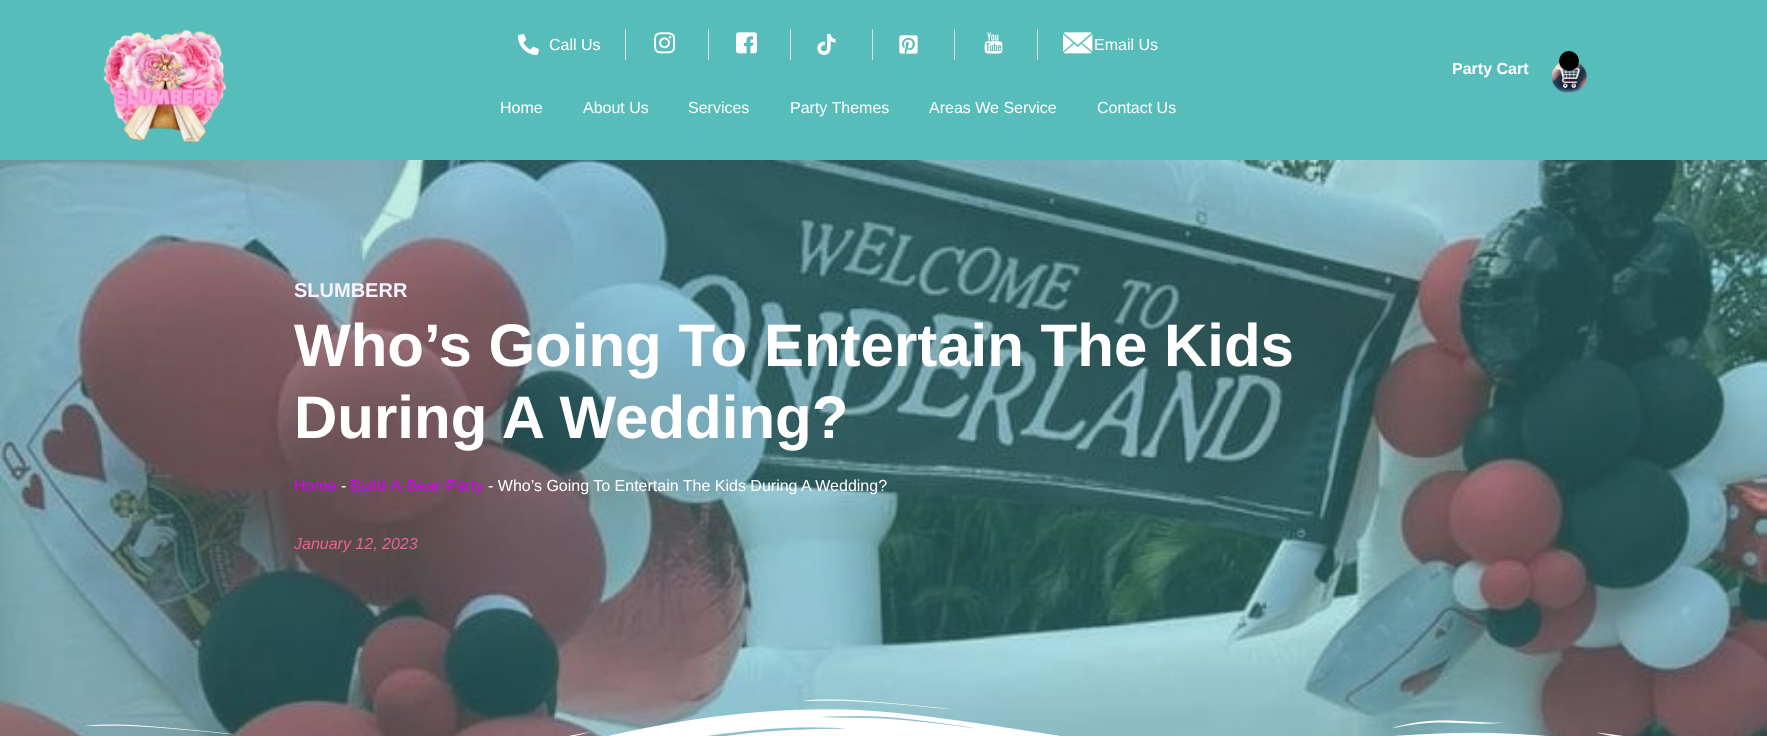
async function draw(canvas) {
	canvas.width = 1767;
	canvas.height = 736;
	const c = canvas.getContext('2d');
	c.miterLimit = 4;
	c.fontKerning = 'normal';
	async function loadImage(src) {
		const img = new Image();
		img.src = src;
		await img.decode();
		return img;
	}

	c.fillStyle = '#56bdba';
	c.fillRect(0, 0, 1767, 736);
	c.drawImage(await loadImage('img1.png'), 103, 29, 124, 114);
	c.drawImage(await loadImage('img2.png'), 518, 34, 21, 21);
	c.font = '16px Liberation Sans';
	c.fillStyle = '#fff';
	c.fillText('Call Us', 549, 50);
	c.fillStyle = '#ddd';
	c.fillRect(625, 29, 1, 31);
	c.drawImage(await loadImage('img3.png'), 654, 32, 22, 22);
	c.fillRect(708, 29, 1, 31);
	c.drawImage(await loadImage('img4.png'), 736, 32, 21, 22);
	c.fillRect(790, 29, 1, 31);
	c.drawImage(await loadImage('img5.png'), 817, 34, 19, 21);
	c.fillRect(872, 29, 1, 31);
	c.drawImage(await loadImage('img6.png'), 899, 35, 19, 19);
	c.fillRect(954, 29, 1, 31);
	c.drawImage(await loadImage('img7.png'), 984, 32, 19, 22);
	c.fillRect(1037, 29, 1, 31);
	c.drawImage(await loadImage('img8.png'), 1063, 32, 30, 22);
	c.fillStyle = '#fff';
	for (const [text, x, y] of [
		['Email Us', 1094, 50],
		['Home', 500, 113],
		['About Us', 583, 113],
		['Services', 688, 113],
		['Party Themes', 790, 113],
		['Areas We Service', 929, 113],
		['Contact Us', 1097, 113],
	]) {
		c.fillText(text, x, y);
	}
	c.font = 'bold 16px Liberation Sans';
	c.fillText('Party Cart', 1452, 74);
	c.drawImage(await loadImage('img9.png'), 1551, 62, 36, 32);
	c.fillStyle = '#000';
	c.beginPath();
	c.arc(1569, 61, 10, 0, 2 * Math.PI);
	c.fill();
	c.drawImage(await loadImage('img10.png'), 0, 160, 1767, 576);
	c.font = 'bold 20px Liberation Sans';
	c.fillStyle = '#f5f3ff';
	c.fillText('SLUMBERR', 294, 297);
	c.font = 'bold 60px Liberation Sans';
	c.fillStyle = '#fff';
	c.fillText('Who’s Going To Entertain The Kids', 294, 366);
	c.fillText('During A Wedding?', 294, 438);
	c.font = '16px Liberation Sans';
	c.fillStyle = '#d700f8';
	c.fillText('Home', 294, 491);
	c.fillStyle = '#fff';
	c.fillText('-', 341, 491);
	c.fillStyle = '#d700f8';
	c.fillText('Build-A-Bear-Party', 350, 491);
	c.fillStyle = '#fff';
	c.fillText('- Who’s Going To Entertain The Kids During A Wedding?', 488, 491);
	c.font = 'italic 16px Liberation Sans';
	c.fillStyle = '#eb6290';
	c.fillText('January 12, 2023', 294, 549);
	c.drawImage(await loadImage('img11.png'), 85, 699, 1539, 37);
}

draw(document.querySelector('canvas'));
